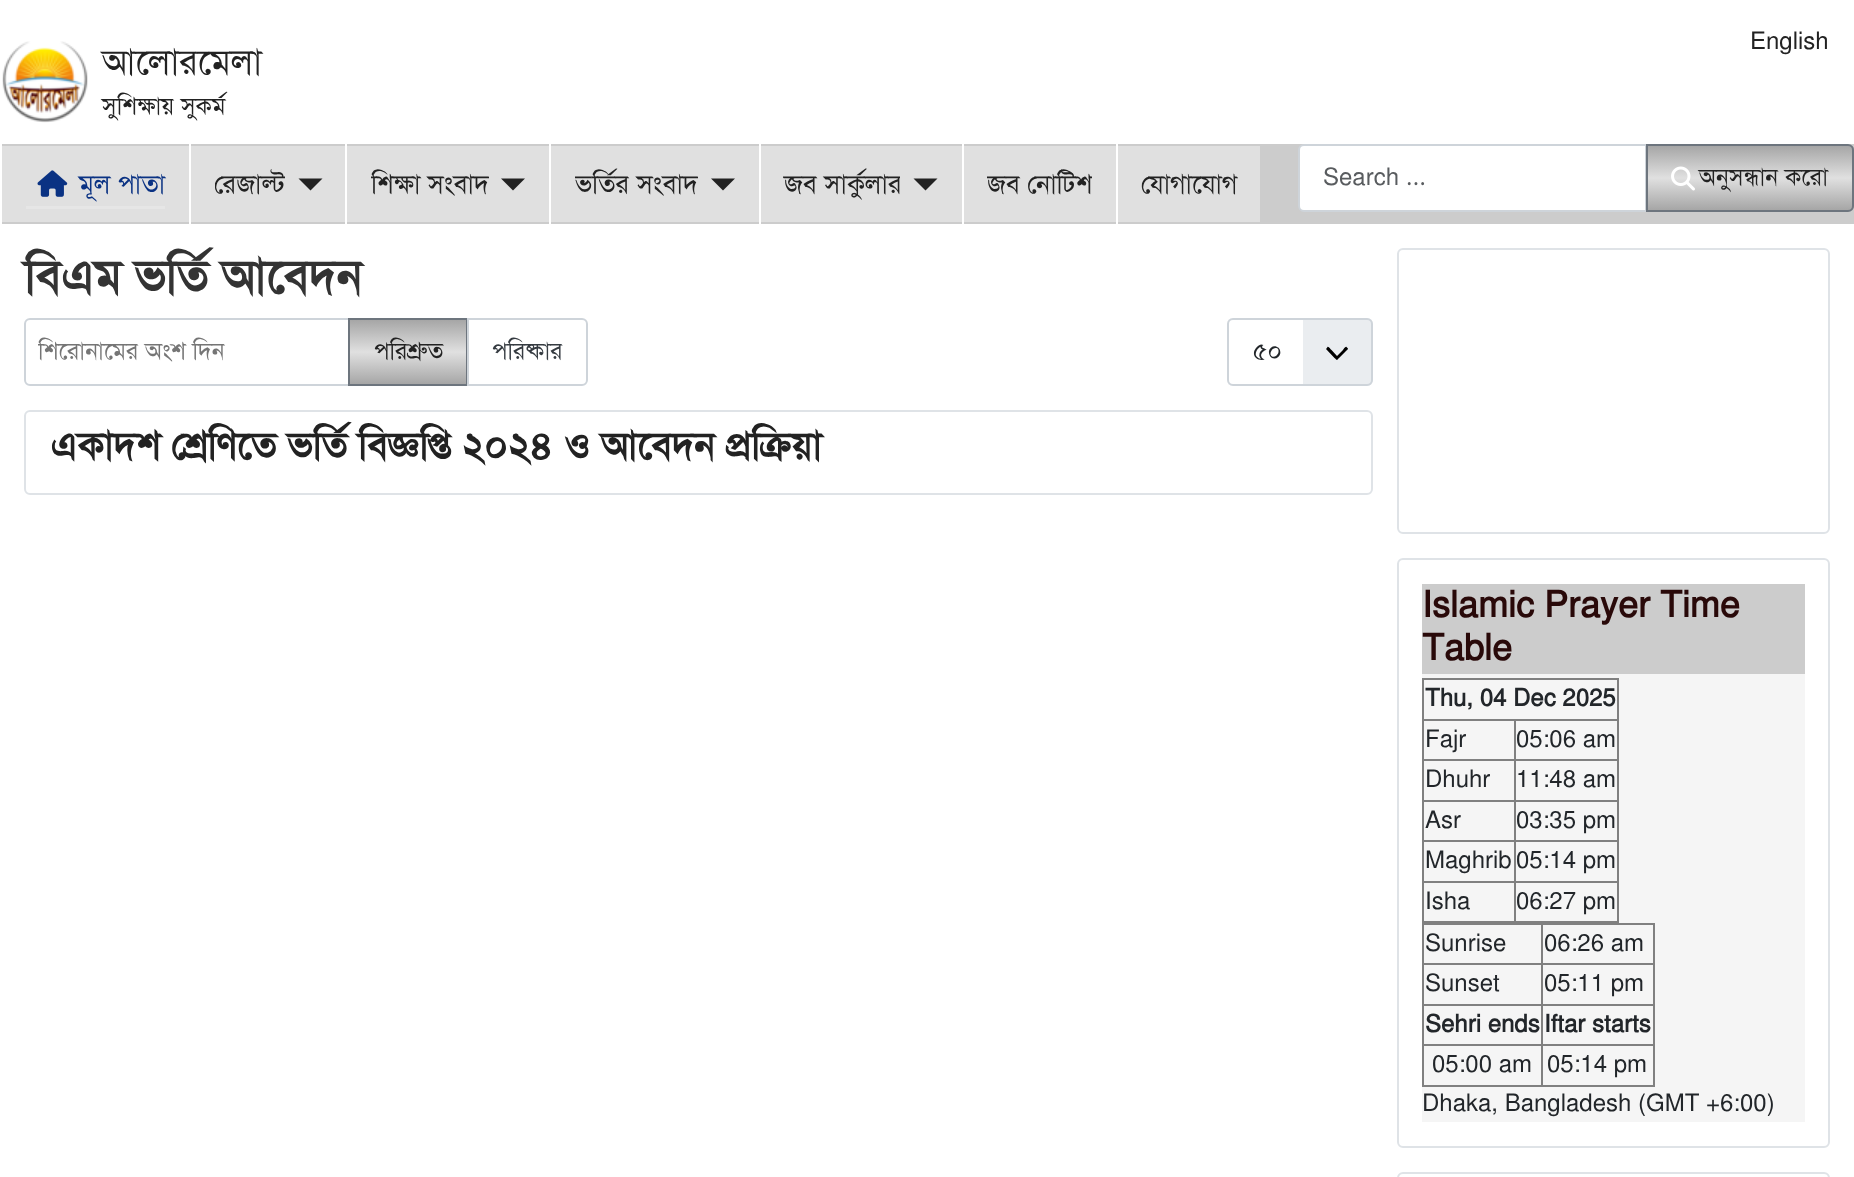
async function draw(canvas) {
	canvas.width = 1854;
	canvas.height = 1177;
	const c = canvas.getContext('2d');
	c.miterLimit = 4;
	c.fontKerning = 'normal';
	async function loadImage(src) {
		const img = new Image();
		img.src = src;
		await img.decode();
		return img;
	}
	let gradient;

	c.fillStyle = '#fff';
	c.fillRect(0, 0, 1854, 1177);
	c.drawImage(await loadImage('img1.png'), 2, 41, 86, 82);
	c.font = '36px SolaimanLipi';
	c.fillStyle = '#222';
	c.fillText('আলোরমেলা', 102, 74);
	c.font = '24px SolaimanLipi';
	c.fillText('সুশিক্ষায় সুকর্ম', 102, 114);
	c.fillText('English', 1750, 49);
	for (const [x, y, w, h, color] of [
		[1260, 144, 594, 80, '#ccc'],
		[2, 146, 187, 76, '#e0e0e0'],
		[0, 144, 1260, 2, '#ccc'],
		[0, 222, 1260, 2, '#ccc'],
		[0, 144, 2, 80, '#fff'],
	]) {
		c.fillStyle = color;
		c.fillRect(x, y, w, h);
	}
	c.drawImage(await loadImage('img2.png'), 37, 170, 31, 27);
	c.font = '26.5px SolaimanLipi';
	c.fillStyle = '#0a3283';
	c.fillText('মূল পাতা', 79, 193);
	for (const [x, y, w, h, color] of [
		[26, 206, 139, 3, '#e6e6e6'],
		[191, 146, 154, 76, '#e0e0e0'],
		[189, 144, 2, 80, '#fff'],
	]) {
		c.fillStyle = color;
		c.fillRect(x, y, w, h);
	}
	c.save();
	c.beginPath();
	c.rect(215, 164, 70, 40);
	c.clip();
	c.fillStyle = '#222';
	c.fillText('রেজাল্ট', 214, 193);
	c.restore();
	c.fillStyle = '#222';
	c.beginPath();
	c.moveTo(298.5, 178.5);
	c.lineTo(322.5, 178.5);
	c.lineTo(310.5, 190.5);
	c.closePath();
	c.fill();
	c.fillStyle = '#e0e0e0';
	c.fillRect(347, 146, 202, 76);
	c.fillStyle = '#fff';
	c.fillRect(345, 144, 2, 80);
	c.save();
	c.beginPath();
	c.rect(371, 164, 118, 40);
	c.clip();
	c.fillStyle = '#222';
	c.fillText('শিক্ষা সংবাদ', 371, 193);
	c.restore();
	c.fillStyle = '#222';
	c.beginPath();
	c.moveTo(501, 178.5);
	c.lineTo(525, 178.5);
	c.lineTo(513, 190.5);
	c.closePath();
	c.fill();
	c.fillStyle = '#e0e0e0';
	c.fillRect(551, 146, 208, 76);
	c.fillStyle = '#fff';
	c.fillRect(549, 144, 2, 80);
	c.save();
	c.beginPath();
	c.rect(575, 164, 123, 40);
	c.clip();
	c.fillStyle = '#222';
	c.fillText('ভর্তির সংবাদ', 575, 193);
	c.restore();
	c.fillStyle = '#222';
	c.beginPath();
	c.moveTo(711, 178.5);
	c.lineTo(735, 178.5);
	c.lineTo(723, 190.5);
	c.closePath();
	c.fill();
	c.fillStyle = '#e0e0e0';
	c.fillRect(761, 146, 201, 76);
	c.fillStyle = '#fff';
	c.fillRect(759, 144, 2, 80);
	c.save();
	c.beginPath();
	c.rect(783, 164, 117, 40);
	c.clip();
	c.fillStyle = '#222';
	c.fillText('জব সার্কুলার', 784, 193);
	c.restore();
	c.fillStyle = '#222';
	c.beginPath();
	c.moveTo(913.5, 178.5);
	c.lineTo(937.5, 178.5);
	c.lineTo(925.5, 190.5);
	c.closePath();
	c.fill();
	c.fillStyle = '#e0e0e0';
	c.fillRect(964, 146, 152, 76);
	c.fillStyle = '#fff';
	c.fillRect(962, 144, 2, 80);
	c.save();
	c.beginPath();
	c.rect(987, 164, 105, 40);
	c.clip();
	c.fillStyle = '#222';
	c.fillText('জব নোটিশ', 987, 193);
	c.restore();
	c.fillStyle = '#e0e0e0';
	c.fillRect(1118, 146, 142, 76);
	c.fillStyle = '#fff';
	c.fillRect(1116, 144, 2, 80);
	c.save();
	c.beginPath();
	c.rect(1140, 164, 98, 40);
	c.clip();
	c.fillStyle = '#222';
	c.fillText('যোগাযোগ', 1141, 193);
	c.restore();
	c.beginPath();
	c.roundRect(1299, 145, 347, 66, [5, 0, 0, 5]);
	c.fill();
	c.strokeStyle = '#ced4da';
	c.lineWidth = 2;
	c.stroke();
	c.font = '24px SolaimanLipi';
	c.fillStyle = '#595c5f';
	c.fillText('Search', 1323, 185);
	c.font = '24px Noto Serif Bengali';
	c.fillText('…', 1405, 185);
	c.save();
	c.beginPath();
	c.roundRect(1646, 144, 208, 68, [0, 6, 6, 0]);
	c.clip();
	gradient = c.createLinearGradient(1750, 146, 1750, 210);
	gradient.addColorStop(0, '#a6a6a6');
	gradient.addColorStop(0.5, '#e0e0e0');
	gradient.addColorStop(1, '#a6a6a6');
	c.fillStyle = gradient;
	c.fillRect(1648, 146, 206, 64);
	c.restore();
	c.beginPath();
	c.roundRect(1647, 145, 206, 66, [0, 5, 5, 0]);
	c.strokeStyle = '#6d757e';
	c.stroke();
	c.drawImage(await loadImage('img3.png'), 1671, 166, 24, 25);
	c.font = '24px SolaimanLipi';
	c.fillStyle = '#222';
	c.fillText('অনুসন্ধান করো', 1699, 185);
	c.font = 'bold 48px SolaimanLipi';
	c.fillStyle = '#333';
	c.fillText('বিএম ভর্তি আবেদন', 24, 293);
	c.beginPath();
	c.roundRect(25, 319, 324, 66, [5, 0, 0, 5]);
	c.strokeStyle = '#ced4da';
	c.stroke();
	c.save();
	c.beginPath();
	c.rect(38, 336, 298, 32);
	c.clip();
	c.font = '24px SolaimanLipi';
	c.fillStyle = '#757575';
	c.fillText('শিরোনামের অংশ দিন', 38, 359);
	c.restore();
	gradient = c.createLinearGradient(408, 320, 408, 384);
	gradient.addColorStop(0, '#a6a6a6');
	gradient.addColorStop(0.5, '#e0e0e0');
	gradient.addColorStop(1, '#a6a6a6');
	c.fillStyle = gradient;
	c.fillRect(350, 320, 116, 64);
	c.strokeStyle = '#6d757e';
	c.strokeRect(349, 319, 118, 66);
	c.font = '24px SolaimanLipi';
	c.fillStyle = '#222';
	c.fillText('পরিশ্রুত', 374, 359);
	c.fillStyle = '#fff';
	c.beginPath();
	c.roundRect(468, 319, 119, 66, [0, 5, 5, 0]);
	c.fill();
	c.strokeStyle = '#ced4da';
	c.stroke();
	c.fillStyle = '#353b41';
	c.fillText('পরিষ্কার', 492, 359);
	c.fillStyle = '#eaedf0';
	c.beginPath();
	c.roundRect(1227, 318, 146, 68, 6);
	c.fill();
	c.fillStyle = '#000';
	c.beginPath();
	c.moveTo(1326, 349);
	c.lineTo(1334.5, 358);
	c.bezierCurveTo(1337.5, 360.5, 1336.5, 360.5, 1339, 358);
	c.lineTo(1346, 351);
	c.bezierCurveTo(1346.5, 350.5, 1348, 349.5, 1348, 348.5);
	c.lineTo(1346.5, 347);
	c.bezierCurveTo(1345.5, 346, 1343, 350, 1343, 350);
	c.lineTo(1337, 356);
	c.lineTo(1331.5, 350);
	c.bezierCurveTo(1331, 350, 1328.5, 346, 1327.5, 347);
	c.lineTo(1326.5, 348.5);
	c.bezierCurveTo(1326, 349, 1326, 349, 1326, 349);
	c.closePath();
	c.fill();
	c.fillStyle = '#fff';
	c.beginPath();
	c.roundRect(1227, 318, 76, 68, [6, 0, 0, 6]);
	c.fill();
	c.beginPath();
	c.roundRect(1228, 319, 144, 66, 5);
	c.stroke();
	c.fillStyle = '#22262a';
	c.fillText('৫০', 1253, 359);
	c.beginPath();
	c.roundRect(25, 411, 1347, 83, 5);
	c.strokeStyle = '#dfe3e7';
	c.stroke();
	c.font = 'bold 39px SolaimanLipi';
	c.fillStyle = '#222';
	c.fillText('একাদশ শ্রেণিতে ভর্তি বিজ্ঞপ্তি ২০২৪ ও আবেদন প্রক্রিয়া', 50, 459);
	c.beginPath();
	c.roundRect(1398, 249, 431, 284, 5);
	c.stroke();
	c.beginPath();
	c.roundRect(1398, 559, 431, 588, 5);
	c.stroke();
	c.fillStyle = '#f5f5f5';
	c.fillRect(1422, 674, 383, 448);
	c.fillStyle = '#ccc';
	c.fillRect(1422, 584, 383, 90);
	c.font = 'bold 36px SolaimanLipi';
	c.fillStyle = '#290909';
	c.fillText('Islamic Prayer Time', 1422, 617);
	c.fillText('Table', 1422, 660);
	for (const [x, y, w, h, color] of [
		[1422, 678, 197, 2, '#808080'],
		[1617, 678, 2, 245, '#808080'],
		[1422, 921, 197, 2, '#808080'],
		[1422, 678, 2, 245, '#808080'],
	]) {
		c.fillStyle = color;
		c.fillRect(x, y, w, h);
	}
	c.font = 'bold 24px SolaimanLipi';
	c.fillStyle = '#22262a';
	c.fillText('Thu, 04 Dec 2025', 1425, 706);
	c.fillStyle = '#808080';
	c.fillRect(1422, 719, 197, 2);
	c.font = '24px SolaimanLipi';
	c.fillStyle = '#22262a';
	c.fillText('Fajr', 1425, 747);
	c.fillText('05:06 am', 1516, 747);
	c.fillStyle = '#808080';
	c.fillRect(1422, 759, 197, 2);
	c.fillStyle = '#22262a';
	c.fillText('Dhuhr', 1425, 787);
	c.fillText('11:48 am', 1516, 787);
	c.fillStyle = '#808080';
	c.fillRect(1422, 800, 197, 2);
	c.fillStyle = '#22262a';
	c.fillText('Asr', 1425, 828);
	c.fillText('03:35 pm', 1516, 828);
	c.fillStyle = '#808080';
	c.fillRect(1422, 840, 197, 2);
	c.fillStyle = '#22262a';
	c.fillText('Maghrib', 1425, 868);
	c.fillText('05:14 pm', 1516, 868);
	c.fillStyle = '#808080';
	c.fillRect(1422, 881, 197, 2);
	c.fillStyle = '#22262a';
	c.fillText('Isha', 1425, 909);
	c.fillStyle = '#808080';
	c.fillRect(1514, 719, 2, 204);
	c.fillStyle = '#22262a';
	c.fillText('06:27 pm', 1516, 909);
	for (const [x, y, w, h, color] of [
		[1422, 923, 233, 2, '#808080'],
		[1653, 923, 2, 163, '#808080'],
		[1422, 1085, 233, 2, '#808080'],
		[1422, 923, 2, 163, '#808080'],
	]) {
		c.fillStyle = color;
		c.fillRect(x, y, w, h);
	}
	c.fillStyle = '#22262a';
	c.fillText('Sunrise', 1425, 951);
	c.fillText('06:26 am', 1544, 951);
	c.fillStyle = '#808080';
	c.fillRect(1422, 963, 233, 2);
	c.fillStyle = '#22262a';
	c.fillText('Sunset', 1425, 991);
	c.fillText('05:11 pm', 1544, 991);
	c.fillStyle = '#808080';
	c.fillRect(1422, 1004, 233, 2);
	c.font = 'bold 24px SolaimanLipi';
	c.fillStyle = '#22262a';
	c.fillText('Sehri ends', 1425, 1032);
	c.fillText('Iftar starts', 1544, 1032);
	c.fillStyle = '#808080';
	c.fillRect(1422, 1044, 233, 2);
	c.font = '24px SolaimanLipi';
	c.fillStyle = '#22262a';
	c.fillText('05:00 am', 1432, 1072);
	c.fillStyle = '#808080';
	c.fillRect(1541, 923, 2, 163);
	c.fillStyle = '#22262a';
	c.fillText('05:14 pm', 1547, 1072);
	c.fillText('Dhaka, Bangladesh (GMT +6:00)', 1422, 1111);
	c.beginPath();
	c.roundRect(1398, 1173, 431, 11, 5);
	c.stroke();
}

draw(document.querySelector('canvas'));
